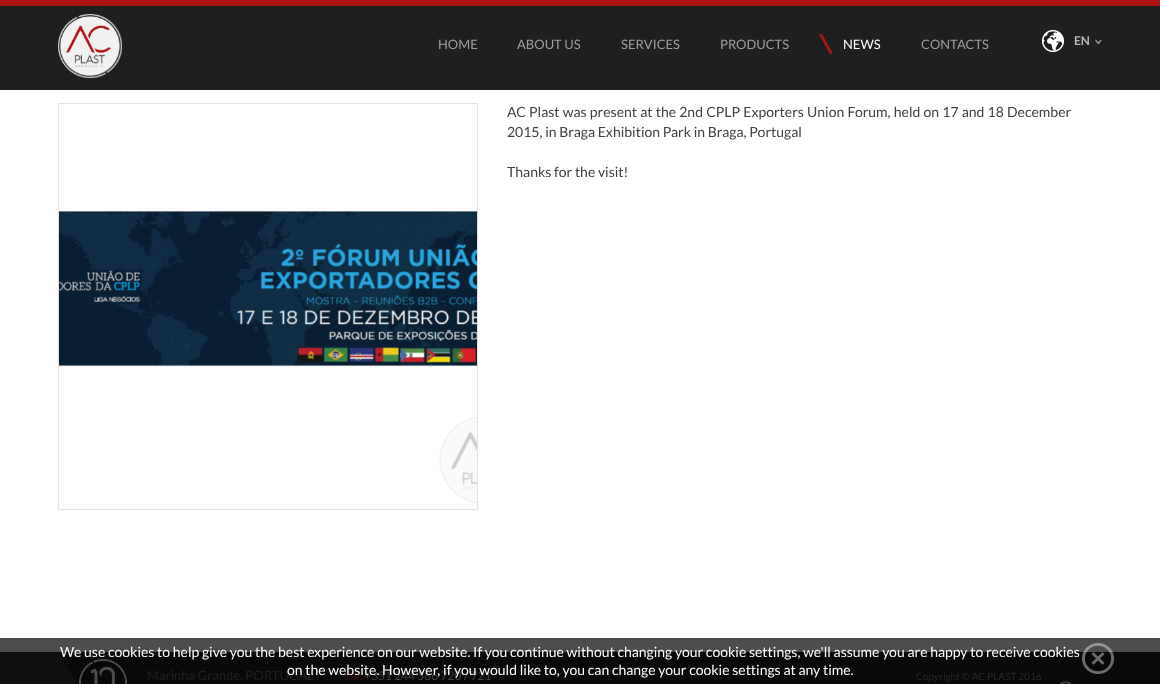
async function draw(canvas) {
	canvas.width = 1160;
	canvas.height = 684;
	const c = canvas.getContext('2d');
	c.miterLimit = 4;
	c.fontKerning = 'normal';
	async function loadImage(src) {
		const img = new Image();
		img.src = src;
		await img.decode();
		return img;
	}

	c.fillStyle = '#fff';
	c.fillRect(0, 0, 1160, 684);
	for (const [x, y, w, h, color] of [
		[0, 638, 1160, 14, '#4d4d4d'],
		[0, 6, 1160, 84, '#1f1f1f'],
		[0, 0, 1160, 6, '#ae1415'],
	]) {
		c.fillStyle = color;
		c.fillRect(x, y, w, h);
	}
	c.drawImage(await loadImage('img1.png'), 58, 14, 64, 64);
	c.font = '13px Lato';
	c.fillStyle = '#9e9e9e';
	for (const [text, x, y] of [
		['HOME', 438, 49],
		['ABOUT US', 517, 49],
		['SERVICES', 621, 49],
		['PRODUCTS', 720, 49],
	]) {
		c.fillText(text, x, y);
	}
	c.drawImage(await loadImage('img2.png'), 819, 34, 14, 20);
	c.fillStyle = '#fff';
	c.fillText('NEWS', 843, 49);
	c.fillStyle = '#9e9e9e';
	c.fillText('CONTACTS', 921, 49);
	c.drawImage(await loadImage('img3.png'), 1042, 30, 22, 22);
	c.font = 'bold 12px Lato';
	c.fillStyle = '#b9b9b9';
	c.fillText('EN', 1074, 45);
	c.drawImage(await loadImage('img4.png'), 1095, 39, 7, 6);
	c.strokeStyle = '#e2e2e2';
	c.strokeRect(58.5, 103.5, 419, 406);
	c.drawImage(await loadImage('img5.png'), 59, 211, 418, 293);
	c.wordSpacing = '0.5px';
	c.font = '14px Lato';
	c.fillStyle = '#404040';
	c.fillText('AC Plast was present at the 2nd CPLP Exporters Union Forum, held on 17 and 18 December', 507, 117);
	c.wordSpacing = '0px';
	c.fillText('2015, in Braga Exhibition Park in Braga, Portugal', 507, 137);
	c.fillText('Thanks for the visit!', 507, 177);
	c.fillStyle = '#0f0f0f';
	c.fillRect(0, 652, 77, 32);
	c.drawImage(await loadImage('img6.png'), 59, 652, 37, 32);
	c.fillStyle = '#090909';
	c.fillRect(96, 652, 1064, 32);
	c.drawImage(await loadImage('img7.png'), 79, 659, 48, 25);
	c.font = '13px Lato';
	c.fillStyle = '#202020';
	c.fillText('Marinha Grande, PORTUGAL', 147, 680);
	c.font = '12px Lato';
	c.fillStyle = '#3d0002';
	c.fillText('Tel.', 344, 680);
	c.fillStyle = '#404040';
	c.fillText('+351 244 586 720 / 721', 364, 680);
	c.font = '10px Lato';
	c.fillStyle = '#282828';
	c.fillText('Copyright © AC PLAST 2016', 916, 680);
	c.drawImage(await loadImage('img8.png'), 1059, 681, 14, 3);
	c.font = '14px Lato';
	c.fillStyle = '#fff';
	c.fillText('We use cookies to help give you the best experience on our website. If you continue without changing your cookie settings, we\'ll assume you are happy to receive cookies', 60, 657);
	c.fillText('on the website. However, if you would like to, you can change your cookie settings at any time.', 287, 675);
	c.drawImage(await loadImage('img9.png'), 1082, 643, 32, 31);
}

draw(document.querySelector('canvas'));
